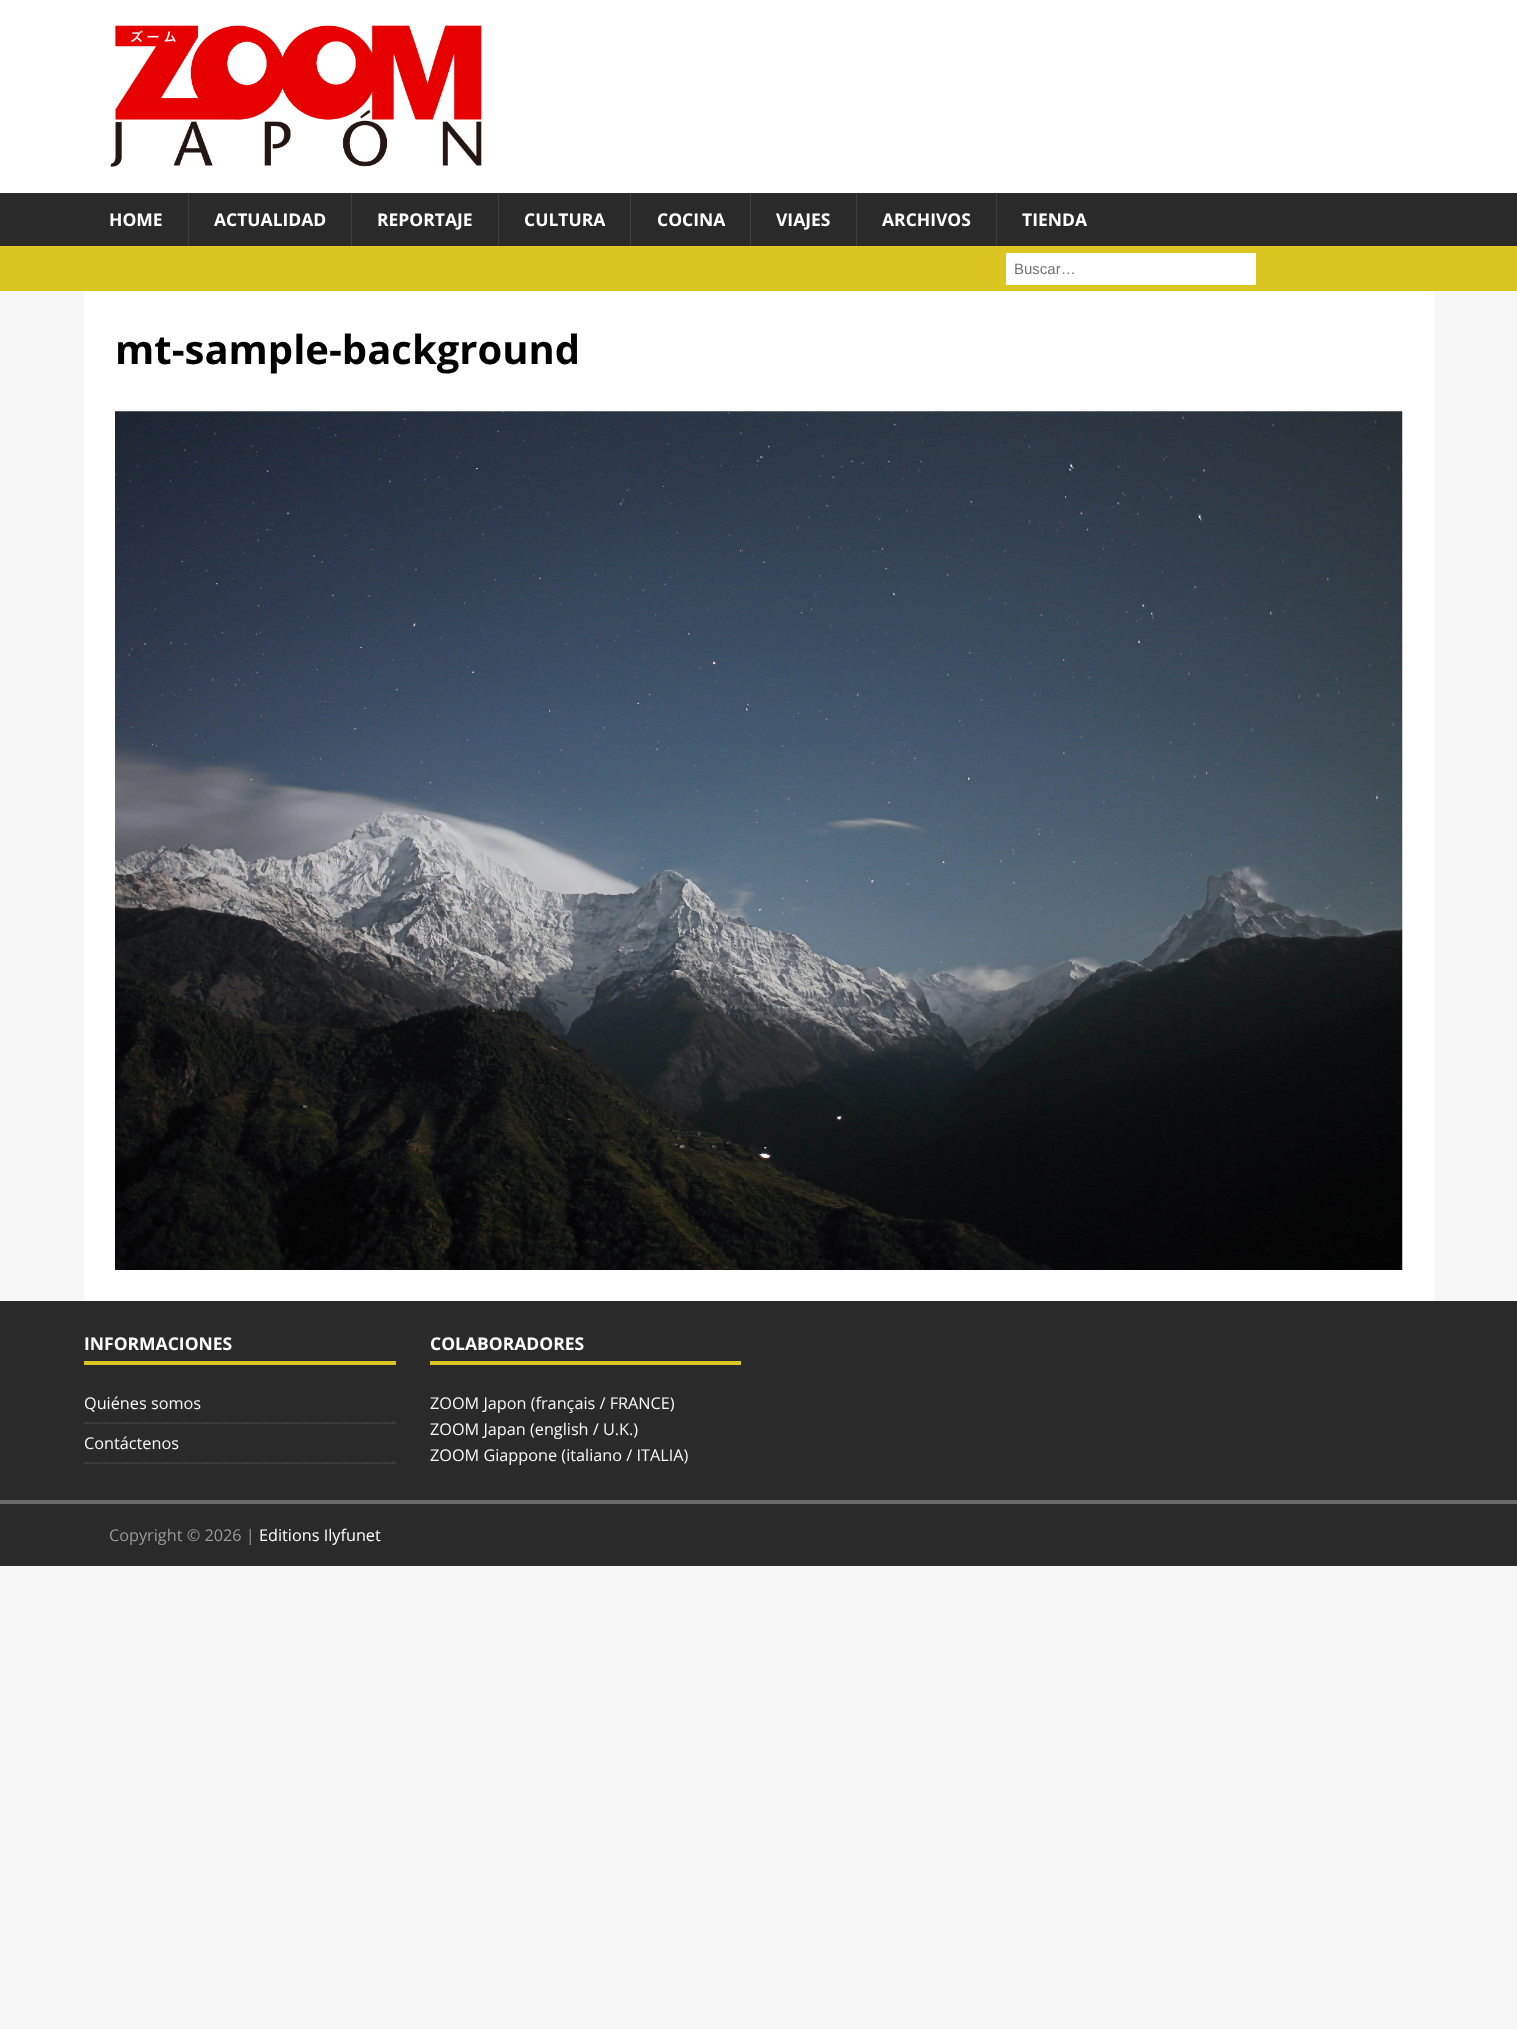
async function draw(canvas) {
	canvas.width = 1517;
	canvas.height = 2029;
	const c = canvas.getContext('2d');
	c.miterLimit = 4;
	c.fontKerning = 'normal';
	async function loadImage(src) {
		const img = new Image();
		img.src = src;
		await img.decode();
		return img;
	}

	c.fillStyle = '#f7f7f7';
	c.fillRect(0, 0, 1517, 2029);
	c.fillStyle = '#fff';
	c.fillRect(0, 0, 1517, 193);
	c.drawImage(await loadImage('img1.png'), 110, 25, 372, 142);
	c.fillStyle = '#2a2a2a';
	c.fillRect(0, 193, 1517, 53);
	c.font = 'bold 17.5px Open Sans';
	c.fillStyle = '#fff';
	c.fillText('HOME', 109, 226);
	c.fillStyle = '#3f3f3f';
	c.fillRect(188, 193, 1, 53);
	c.fillStyle = '#fff';
	c.fillText('ACTUALIDAD', 214, 226);
	c.fillStyle = '#3f3f3f';
	c.fillRect(351, 193, 1, 53);
	c.fillStyle = '#fff';
	c.fillText('REPORTAJE', 377, 226);
	c.fillStyle = '#3f3f3f';
	c.fillRect(498, 193, 1, 53);
	c.fillStyle = '#fff';
	c.fillText('CULTURA', 524, 226);
	c.fillStyle = '#3f3f3f';
	c.fillRect(630, 193, 1, 53);
	c.fillStyle = '#fff';
	c.fillText('COCINA', 657, 226);
	c.fillStyle = '#3f3f3f';
	c.fillRect(750, 193, 1, 53);
	c.fillStyle = '#fff';
	c.fillText('VIAJES', 776, 226);
	c.fillStyle = '#3f3f3f';
	c.fillRect(856, 193, 1, 53);
	c.fillStyle = '#fff';
	c.fillText('ARCHIVOS', 882, 226);
	c.fillStyle = '#3f3f3f';
	c.fillRect(996, 193, 1, 53);
	c.fillStyle = '#fff';
	c.fillText('TIENDA', 1022, 226);
	c.fillStyle = '#dbc520';
	c.fillRect(0, 246, 1517, 45);
	c.fillStyle = '#fff';
	c.fillRect(1006, 253, 250, 32);
	c.font = '15px Liberation Sans';
	c.fillStyle = '#757575';
	c.fillText('Buscar…', 1014, 274);
	c.fillStyle = '#fff';
	c.fillRect(84, 291, 1350, 1010);
	c.font = 'bold 40px Open Sans';
	c.fillStyle = '#000';
	c.fillText('mt-sample-background', 115, 364);
	c.drawImage(await loadImage('img2.png'), 115, 411, 1288, 859);
	c.fillStyle = '#2a2a2a';
	c.fillRect(0, 1301, 1517, 199);
	c.fillStyle = '#dbc520';
	c.fillRect(84, 1361, 312, 4);
	c.font = 'bold 17.5px Open Sans';
	c.fillStyle = '#fff';
	c.fillText('INFORMACIONES', 84, 1350);
	c.beginPath();
	c.moveTo(84, 1423);
	c.lineTo(396, 1423);
	c.strokeStyle = '#6a6a6a';
	c.lineWidth = 1.2;
	c.setLineDash([1.25, 1.25]);
	c.stroke();
	c.font = '16.25px Open Sans';
	c.fillStyle = '#f7f7f7';
	c.fillText('Quiénes somos', 84, 1409);
	c.beginPath();
	c.moveTo(84, 1463);
	c.lineTo(396, 1463);
	c.stroke();
	c.fillText('Contáctenos', 84, 1449);
	c.fillStyle = '#dbc520';
	c.fillRect(430, 1361, 311, 4);
	c.font = 'bold 17.5px Open Sans';
	c.fillStyle = '#fff';
	c.fillText('COLABORADORES', 430, 1350);
	c.font = '16.25px Open Sans';
	c.fillStyle = '#f7f7f7';
	for (const [text, x, y] of [
		['ZOOM Japon (français / FRANCE)', 430, 1409],
		['ZOOM Japan (english / U.K.)', 430, 1435],
		['ZOOM Giappone (italiano / ITALIA)', 430, 1461],
	]) {
		c.fillText(text, x, y);
	}
	c.fillStyle = '#2a2a2a';
	c.fillRect(0, 1504, 1517, 62);
	c.fillStyle = '#6a6a6a';
	c.fillRect(0, 1500, 1517, 4);
	c.fillStyle = '#999';
	c.fillText('Copyright © 2026 |', 109, 1541);
	c.fillStyle = '#fff';
	c.fillText('Editions Ilyfunet', 259, 1541);
}

draw(document.querySelector('canvas'));
